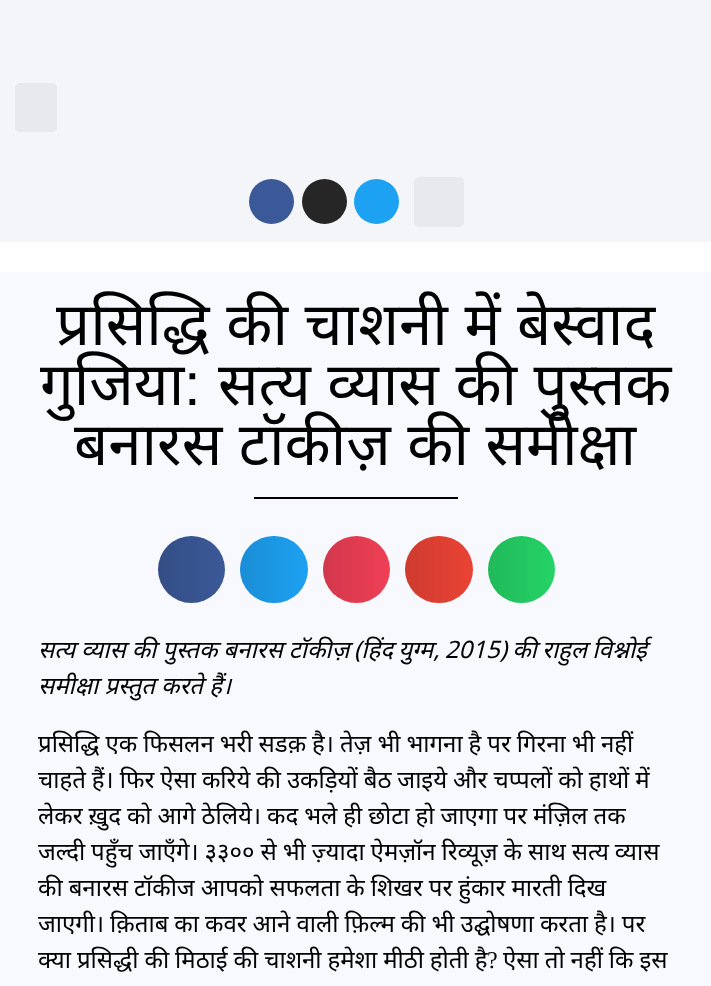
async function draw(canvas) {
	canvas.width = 711;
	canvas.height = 986;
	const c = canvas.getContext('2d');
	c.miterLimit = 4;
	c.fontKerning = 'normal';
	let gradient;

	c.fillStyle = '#fff';
	c.fillRect(0, 0, 711, 986);
	c.fillStyle = '#f4f5f8';
	c.fillRect(0, 0, 711, 242);
	c.fillStyle = '#e8e9ec';
	c.beginPath();
	c.roundRect(15, 83, 42, 49, 5);
	c.fill();
	c.fillStyle = '#3b5998';
	c.beginPath();
	c.arc(271.5, 201.5, 22.5, 0, 2 * Math.PI);
	c.fill();
	c.fillStyle = '#262626';
	c.beginPath();
	c.arc(324.5, 201.5, 22.5, 0, 2 * Math.PI);
	c.fill();
	c.fillStyle = '#1da1f2';
	c.beginPath();
	c.arc(376.5, 201.5, 22.5, 0, 2 * Math.PI);
	c.fill();
	c.fillStyle = '#e8e9ec';
	c.beginPath();
	c.roundRect(414, 177, 50, 50, 5);
	c.fill();
	c.fillStyle = '#f7f9ff';
	c.fillRect(0, 272, 711, 714);
	c.wordSpacing = '1px';
	c.font = '60px Noto Sans';
	c.fillStyle = '#000';
	c.fillText('प्रसिद्धि की चाशनी में बेस्वाद', 56, 345);
	c.wordSpacing = '0px';
	c.fillText('गुजिया', 40, 405);
	c.font = '60px Liberation Sans';
	c.fillText(':', 184, 405);
	c.wordSpacing = '1px';
	c.font = '60px Noto Sans';
	c.fillText('सत्य व्यास की पुस्तक', 218, 405);
	c.fillText('बनारस टॉकीज़ की समीक्षा', 74, 465);
	c.fillRect(254, 497, 204, 2);
	c.fillStyle = '#3b5998';
	c.beginPath();
	c.arc(191.5, 569.5, 33.5, 0, 2 * Math.PI);
	c.fill();
	gradient = c.createLinearGradient(158, 569, 225, 569);
	gradient.addColorStop(0, '#0000001f');
	gradient.addColorStop(1, '#00000000');
	c.fillStyle = gradient;
	c.beginPath();
	c.arc(191.5, 569.5, 33.5, 0, 2 * Math.PI);
	c.fill();
	c.fillStyle = '#1da1f2';
	c.beginPath();
	c.roundRect(240, 536, 68, 67, 33.5);
	c.fill();
	gradient = c.createLinearGradient(240, 569, 308, 569);
	gradient.addColorStop(0, '#0000001f');
	gradient.addColorStop(1, '#00000000');
	c.fillStyle = gradient;
	c.beginPath();
	c.roundRect(240, 536, 68, 67, 33.5);
	c.fill();
	c.fillStyle = '#ef3f56';
	c.beginPath();
	c.arc(356.5, 569.5, 33.5, 0, 2 * Math.PI);
	c.fill();
	gradient = c.createLinearGradient(323, 569, 390, 569);
	gradient.addColorStop(0, '#0000001f');
	gradient.addColorStop(1, '#00000000');
	c.fillStyle = gradient;
	c.beginPath();
	c.arc(356.5, 569.5, 33.5, 0, 2 * Math.PI);
	c.fill();
	c.fillStyle = '#ea4335';
	c.beginPath();
	c.roundRect(405, 536, 68, 67, 33.5);
	c.fill();
	gradient = c.createLinearGradient(405, 569, 473, 569);
	gradient.addColorStop(0, '#0000001f');
	gradient.addColorStop(1, '#00000000');
	c.fillStyle = gradient;
	c.beginPath();
	c.roundRect(405, 536, 68, 67, 33.5);
	c.fill();
	c.fillStyle = '#25d366';
	c.beginPath();
	c.arc(521.5, 569.5, 33.5, 0, 2 * Math.PI);
	c.fill();
	gradient = c.createLinearGradient(488, 569, 555, 569);
	gradient.addColorStop(0, '#0000001f');
	gradient.addColorStop(1, '#00000000');
	c.fillStyle = gradient;
	c.beginPath();
	c.arc(521.5, 569.5, 33.5, 0, 2 * Math.PI);
	c.fill();
	c.wordSpacing = '-0.25px';
	c.font = 'italic 24px Noto Sans';
	c.fillStyle = '#000';
	c.fillText('सत्य व्यास की पुस्तक बनारस टॉकीज़', 38, 658);
	c.wordSpacing = '-1px';
	c.fillText('(हिंद युग्म, 2015) की राहुल विश्नोई', 354, 658);
	c.wordSpacing = '0px';
	c.fillText('समीक्षा प्रस्तुत करते हैं।', 38, 694);
	c.wordSpacing = '-0.25px';
	c.font = '24px Noto Sans';
	for (const [text, x, y] of [
		['प्रसिद्धि एक फिसलन भरी सडक़ है। तेज़ भी भागना है पर गिरना भी नहीं', 38, 752],
		['चाहते हैं। फिर ऐसा करिये की उकड़ियों बैठ जाइये और चप्पलों को हाथों में', 38, 788],
		['लेकर ख़ुद को आगे ठेलिये। कद भले ही छोटा हो जाएगा पर मंज़िल तक', 38, 824],
		['जल्दी पहुँच जाएँगे। ३३०० से भी ज़्यादा ऐमज़ॉन रिव्यूज़ के साथ सत्य व्यास', 38, 860],
		['की बनारस टॉकीज आपको सफलता के शिखर पर हुंकार मारती दिख', 38, 896],
		['जाएगी। क़िताब का कवर आने वाली फ़िल्म की भी उद्घोषणा करता है। पर', 38, 932],
		['क्या प्रसिद्धी की मिठाई की चाशनी हमेशा मीठी होती है', 38, 968],
	]) {
		c.fillText(text, x, y);
	}
	c.wordSpacing = '0px';
	c.font = '24px Liberation Serif';
	c.fillText('?', 487, 968);
	c.wordSpacing = '-0.25px';
	c.font = '24px Noto Sans';
	c.fillText('ऐसा तो नहीं कि इस', 503, 968);
}

draw(document.querySelector('canvas'));
